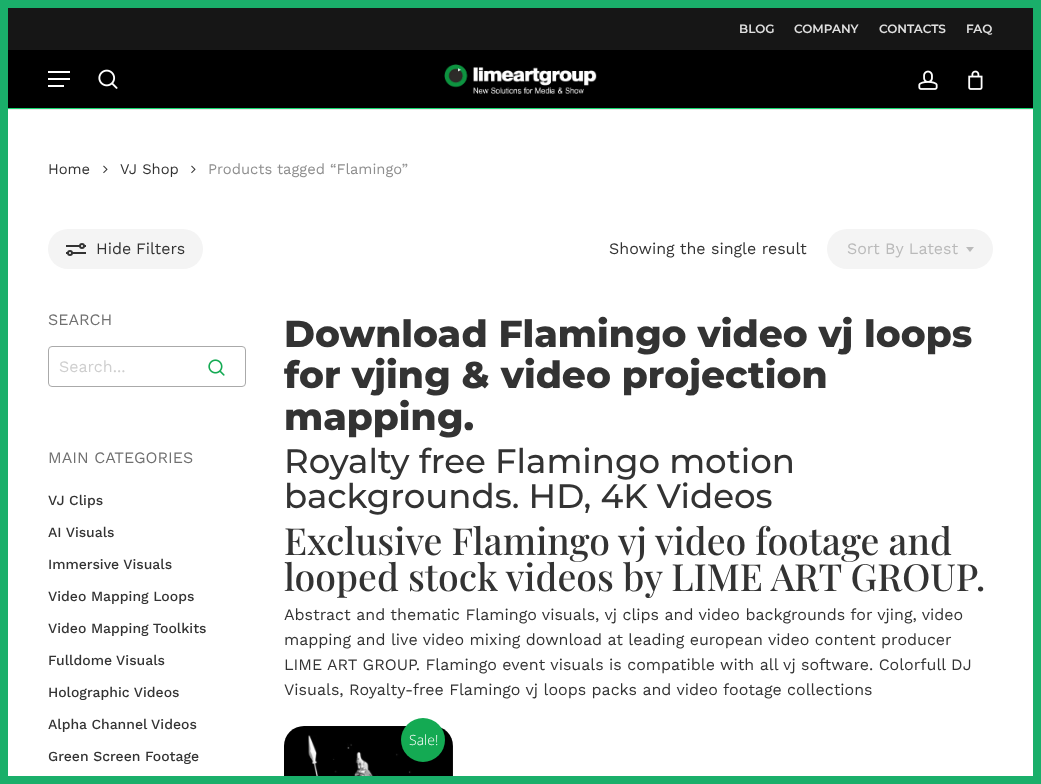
async function draw(canvas) {
	canvas.width = 1041;
	canvas.height = 784;
	const c = canvas.getContext('2d');
	c.miterLimit = 4;
	c.fontKerning = 'normal';
	async function loadImage(src) {
		const img = new Image();
		img.src = src;
		await img.decode();
		return img;
	}

	c.fillStyle = '#fff';
	c.fillRect(0, 0, 1041, 784);
	for (const [x, y, w, h, color] of [
		[0, 0, 1041, 8, '#1aaf6a'],
		[0, 109, 1041, 1, '#ebebeb'],
		[1033, 0, 8, 784, '#1aaf6a'],
	]) {
		c.fillStyle = color;
		c.fillRect(x, y, w, h);
	}
	c.fillStyle = '#f7f7f7';
	c.beginPath();
	c.roundRect(284, 726, 169, 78, 20);
	c.fill();
	for (const [x, y, w, h, color] of [
		[0, 776, 1041, 8, '#1aaf6a'],
		[0, 0, 8, 784, '#1aaf6a'],
		[8, 8, 1025, 42, '#161616'],
	]) {
		c.fillStyle = color;
		c.fillRect(x, y, w, h);
	}
	c.font = '600 12px Montserrat';
	c.fillStyle = '#e0e0e0';
	for (const [text, x, y] of [
		['BLOG', 739, 33],
		['COMPANY', 794, 33],
		['CONTACTS', 879, 33],
		['FAQ', 966, 33],
	]) {
		c.fillText(text, x, y);
	}
	c.fillStyle = '#15d66f';
	c.fillRect(8, 108, 1025, 1);
	c.fillStyle = '#000';
	c.fillRect(8, 50, 1025, 58);
	c.drawImage(await loadImage('img1.png'), 444, 64, 153, 30);
	for (const [x, y, w, h, color] of [
		[48, 71, 22, 2, '#fff'],
		[48, 85, 16, 2, '#fff'],
		[48, 78, 22, 2, '#fff'],
	]) {
		c.fillStyle = color;
		c.fillRect(x, y, w, h);
	}
	c.drawImage(await loadImage('img2.png'), 98, 69, 20, 20);
	c.drawImage(await loadImage('img3.png'), 918, 70, 20, 20);
	c.drawImage(await loadImage('img4.png'), 968, 70, 15, 20);
	c.font = '14.75px Work Sans';
	c.fillStyle = '#333';
	c.fillText('Home', 48, 174);
	c.drawImage(await loadImage('img5.png'), 103, 165, 5, 9);
	c.fillText('VJ Shop', 120, 174);
	c.drawImage(await loadImage('img5.png'), 191, 165, 5, 9);
	c.fillStyle = '#8f8f8f';
	c.fillText('Products tagged “Flamingo”', 208, 174);
	c.fillStyle = '#f4f4f4';
	c.beginPath();
	c.roundRect(48, 229, 155, 40, 20);
	c.fill();
	c.fillStyle = '#333';
	c.fillRect(66, 245, 20, 2);
	c.fillRect(66, 252, 20, 2);
	c.fillStyle = '#fff';
	c.beginPath();
	c.arc(82, 246, 2, 0, 2 * Math.PI);
	c.fill();
	c.strokeStyle = '#333';
	c.lineWidth = 2;
	c.stroke();
	c.beginPath();
	c.arc(70, 253, 2, 0, 2 * Math.PI);
	c.fill();
	c.stroke();
	c.font = '16px Work Sans';
	c.fillStyle = '#333';
	for (const [text, x, y] of [
		['Hide', 96, 254],
		['Filters', 136, 254],
		['Showing the single result', 609, 254],
	]) {
		c.fillText(text, x, y);
	}
	c.fillStyle = '#f4f4f4';
	c.beginPath();
	c.roundRect(827, 229, 166, 40, 20);
	c.fill();
	c.fillStyle = '#bababa';
	c.fillText('Sort By Latest', 847, 254);
	c.beginPath();
	c.moveTo(966, 247);
	c.lineTo(974, 247);
	c.lineTo(970, 252);
	c.closePath();
	c.fill();
	c.fillStyle = '#707070';
	c.fillText('SEARCH', 48, 325);
	c.beginPath();
	c.roundRect(48.5, 346.5, 197, 40, 3.5);
	c.strokeStyle = '#aaa';
	c.lineWidth = 1;
	c.stroke();
	c.fillStyle = '#cfcfcf';
	c.fillText('Search...', 59, 372);
	c.drawImage(await loadImage('img6.png'), 208, 359, 17, 17);
	c.fillStyle = '#707070';
	c.fillText('MAIN CATEGORIES', 48, 463);
	c.font = '500 14px Work Sans';
	c.fillStyle = '#333';
	for (const [text, x, y] of [
		['VJ Clips', 48, 505],
		['AI Visuals', 48, 537],
		['Immersive Visuals', 48, 569],
		['Video Mapping Loops', 48, 601],
		['Video Mapping Toolkits', 48, 633],
		['Fulldome Visuals', 48, 665],
		['Holographic Videos', 48, 697],
		['Alpha Channel Videos', 48, 729],
		['Green Screen Footage', 48, 761],
	]) {
		c.fillText(text, x, y);
	}
	c.font = '800 37.5px Montserrat';
	for (const [text, x, y] of [
		['Download Flamingo video vj loops', 284, 347],
		['for vjing & video projection', 284, 388],
		['mapping.', 284, 430],
	]) {
		c.fillText(text, x, y);
	}
	c.font = '500 34px Montserrat';
	c.fillText('Royalty free Flamingo motion', 284, 473);
	c.fillText('backgrounds. HD, 4K Videos', 284, 508);
	c.font = '500 37.4px Playfair Display';
	c.fillText('Exclusive Flamingo vj video footage and', 284, 555);
	c.fillText('looped stock videos by LIME ART GROUP.', 284, 591);
	c.font = '16px Work Sans';
	for (const [text, x, y] of [
		['Abstract and thematic Flamingo visuals, vj clips and video backgrounds for vjing, video', 284, 620],
		['mapping and live video mixing download at leading european video content producer', 284, 645],
		['LIME ART GROUP. Flamingo event visuals is compatible with all vj software. Colorfull DJ', 284, 670],
		['Visuals, Royalty-free Flamingo vj loops packs and video footage collections', 284, 695],
	]) {
		c.fillText(text, x, y);
	}
	c.drawImage(await loadImage('img7.png'), 284, 726, 169, 50);
	c.fillStyle = '#14aa53';
	c.beginPath();
	c.arc(423, 740, 22, 0, 2 * Math.PI);
	c.fill();
	c.font = '300 14px Open Sans';
	c.fillStyle = '#fff';
	c.fillText('Sale!', 409, 745);
}

draw(document.querySelector('canvas'));
